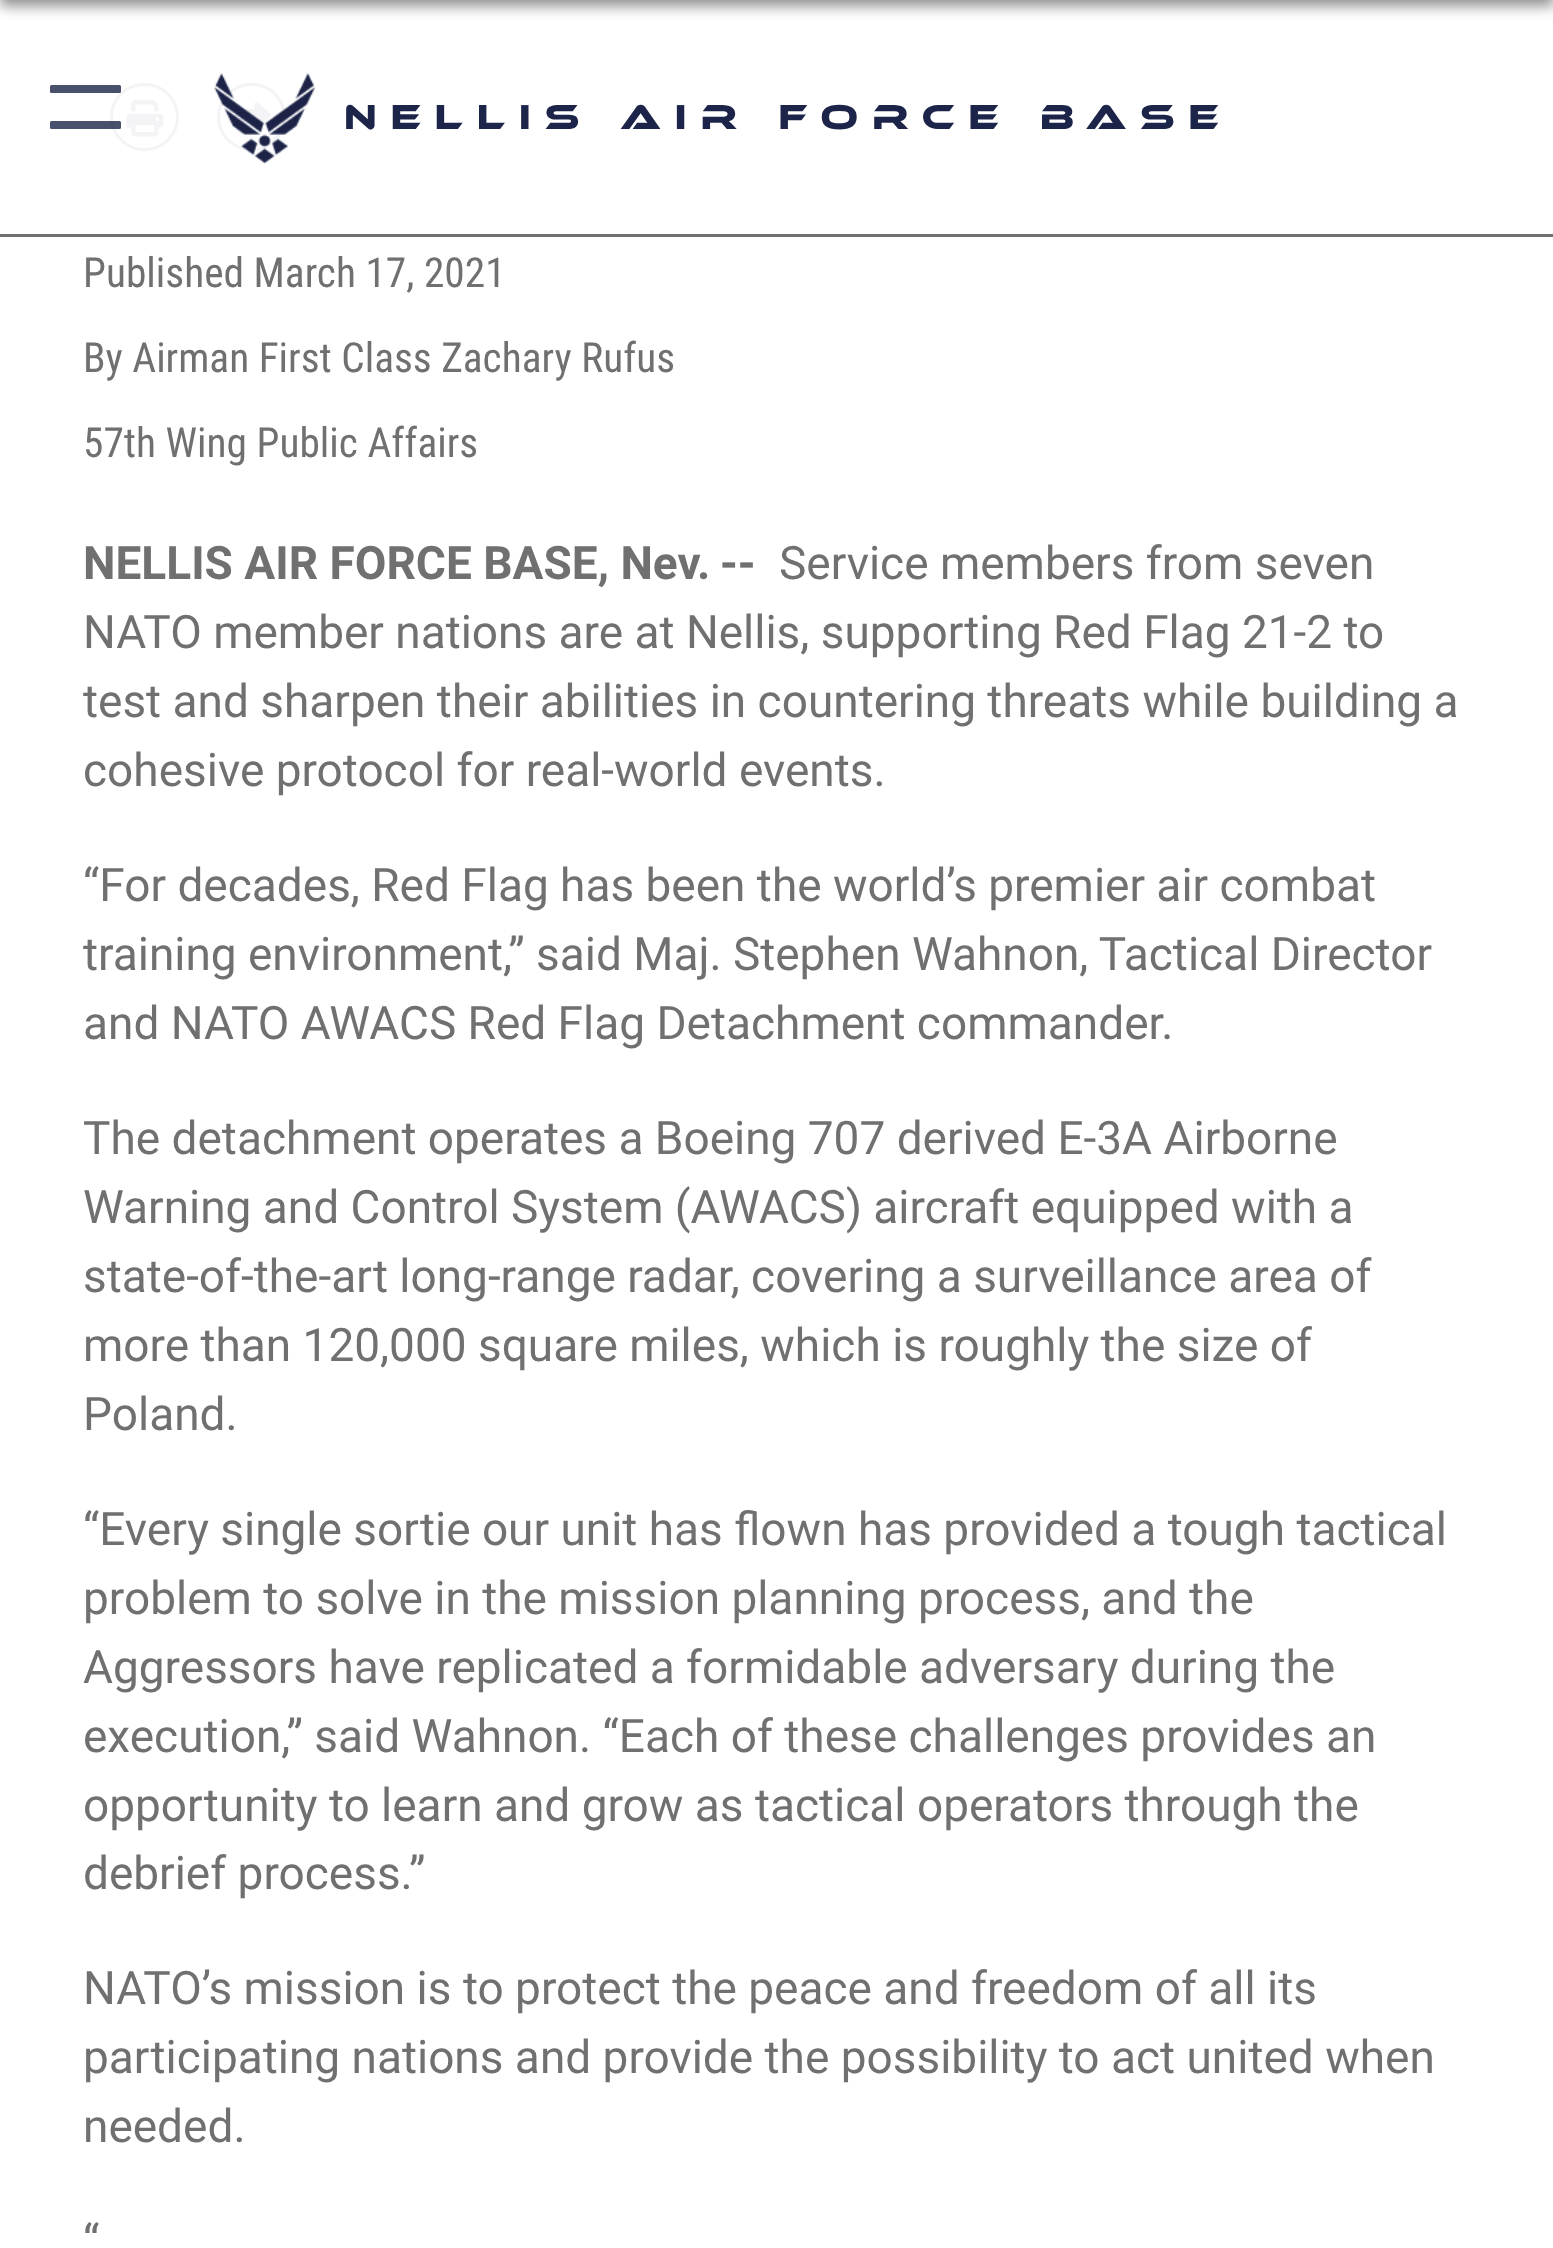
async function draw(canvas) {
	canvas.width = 1553;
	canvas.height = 2248;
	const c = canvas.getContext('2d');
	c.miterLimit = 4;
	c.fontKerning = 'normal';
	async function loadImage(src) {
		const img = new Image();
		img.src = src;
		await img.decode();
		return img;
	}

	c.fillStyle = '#fff';
	c.fillRect(0, 0, 1553, 2248);
	c.fillStyle = '#00000073';
	c.filter = 'blur(7px)';
	c.beginPath();
	c.rect(0, -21, 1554, 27);
	c.fill();
	c.filter = 'none';
	c.fillStyle = '#707070';
	c.fillRect(0, 234, 1553, 3);
	c.beginPath();
	c.roundRect(111.5, 84.5, 66, 65, 32.5);
	c.strokeStyle = '#f4f4f6';
	c.lineWidth = 3;
	c.stroke();
	c.fillStyle = '#1c2449cc';
	c.beginPath();
	c.roundRect(50, 85, 71, 8, 1.5);
	c.fill();
	c.beginPath();
	c.roundRect(50, 121, 71, 8, 1.5);
	c.fill();
	c.beginPath();
	c.roundRect(218.5, 84.5, 66, 65, 32.5);
	c.stroke();
	c.drawImage(await loadImage('img3.png'), 234, 102, 37, 33);
	c.drawImage(await loadImage('img1.png'), 214, 72, 102, 92);
	c.letterSpacing = '13.75px';
	c.font = '35.75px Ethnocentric';
	c.fillStyle = '#1c2449';
	c.fillText('Nellis Air Force Base', 344, 129);
	c.drawImage(await loadImage('img2.png'), 126, 99, 38, 38);
	c.letterSpacing = '0px';
	c.font = '41.4px Roboto Condensed';
	c.fillStyle = '#707070';
	for (const [text, x, y] of [
		['Published March 17, 2021', 83, 287],
		['By Airman First Class Zachary Rufus', 83, 372],
		['57th Wing Public Affairs', 83, 457],
	]) {
		c.fillText(text, x, y);
	}
	c.font = '46px Roboto';
	for (const [text, x, y] of [
		['Service members from seven', 779, 579],
		['NATO member nations are at Nellis, supporting Red Flag 21-2 to', 83, 648],
		['test and sharpen their abilities in countering threats while building a', 83, 717],
		['cohesive protocol for real-world events.', 83, 786],
	]) {
		c.fillText(text, x, y);
	}
	c.font = 'bold 46px Roboto';
	c.fillText('NELLIS AIR FORCE BASE, Nev.', 83, 579);
	c.fillText('--', 720, 579);
	c.font = '46px Roboto';
	for (const [text, x, y] of [
		['“For decades, Red Flag has been the world’s premier air combat', 83, 901],
		['training environment,” said Maj. Stephen Wahnon, Tactical Director', 83, 970],
		['and NATO AWACS Red Flag Detachment commander.', 83, 1039],
		['The detachment operates a Boeing 707 derived E-3A Airborne', 83, 1154],
		['Warning and Control System (AWACS) aircraft equipped with a', 83, 1223],
		['state-of-the-art long-range radar, covering a surveillance area of', 83, 1292],
		['more than 120,000 square miles, which is roughly the size of', 83, 1361],
		['Poland.', 83, 1430],
		['“Every single sortie our unit has flown has provided a tough tactical', 83, 1545],
		['problem to solve in the mission planning process, and the', 83, 1614],
		['Aggressors have replicated a formidable adversary during the', 83, 1683],
		['execution,” said Wahnon. “Each of these challenges provides an', 83, 1752],
		['opportunity to learn and grow as tactical operators through the', 83, 1821],
		['debrief process.”', 83, 1889],
		['NATO’s mission is to protect the peace and freedom of all its', 83, 2004],
		['participating nations and provide the possibility to act united when', 83, 2073],
		['needed.', 83, 2142],
		['“', 83, 2257],
	]) {
		c.fillText(text, x, y);
	}
}

draw(document.querySelector('canvas'));
